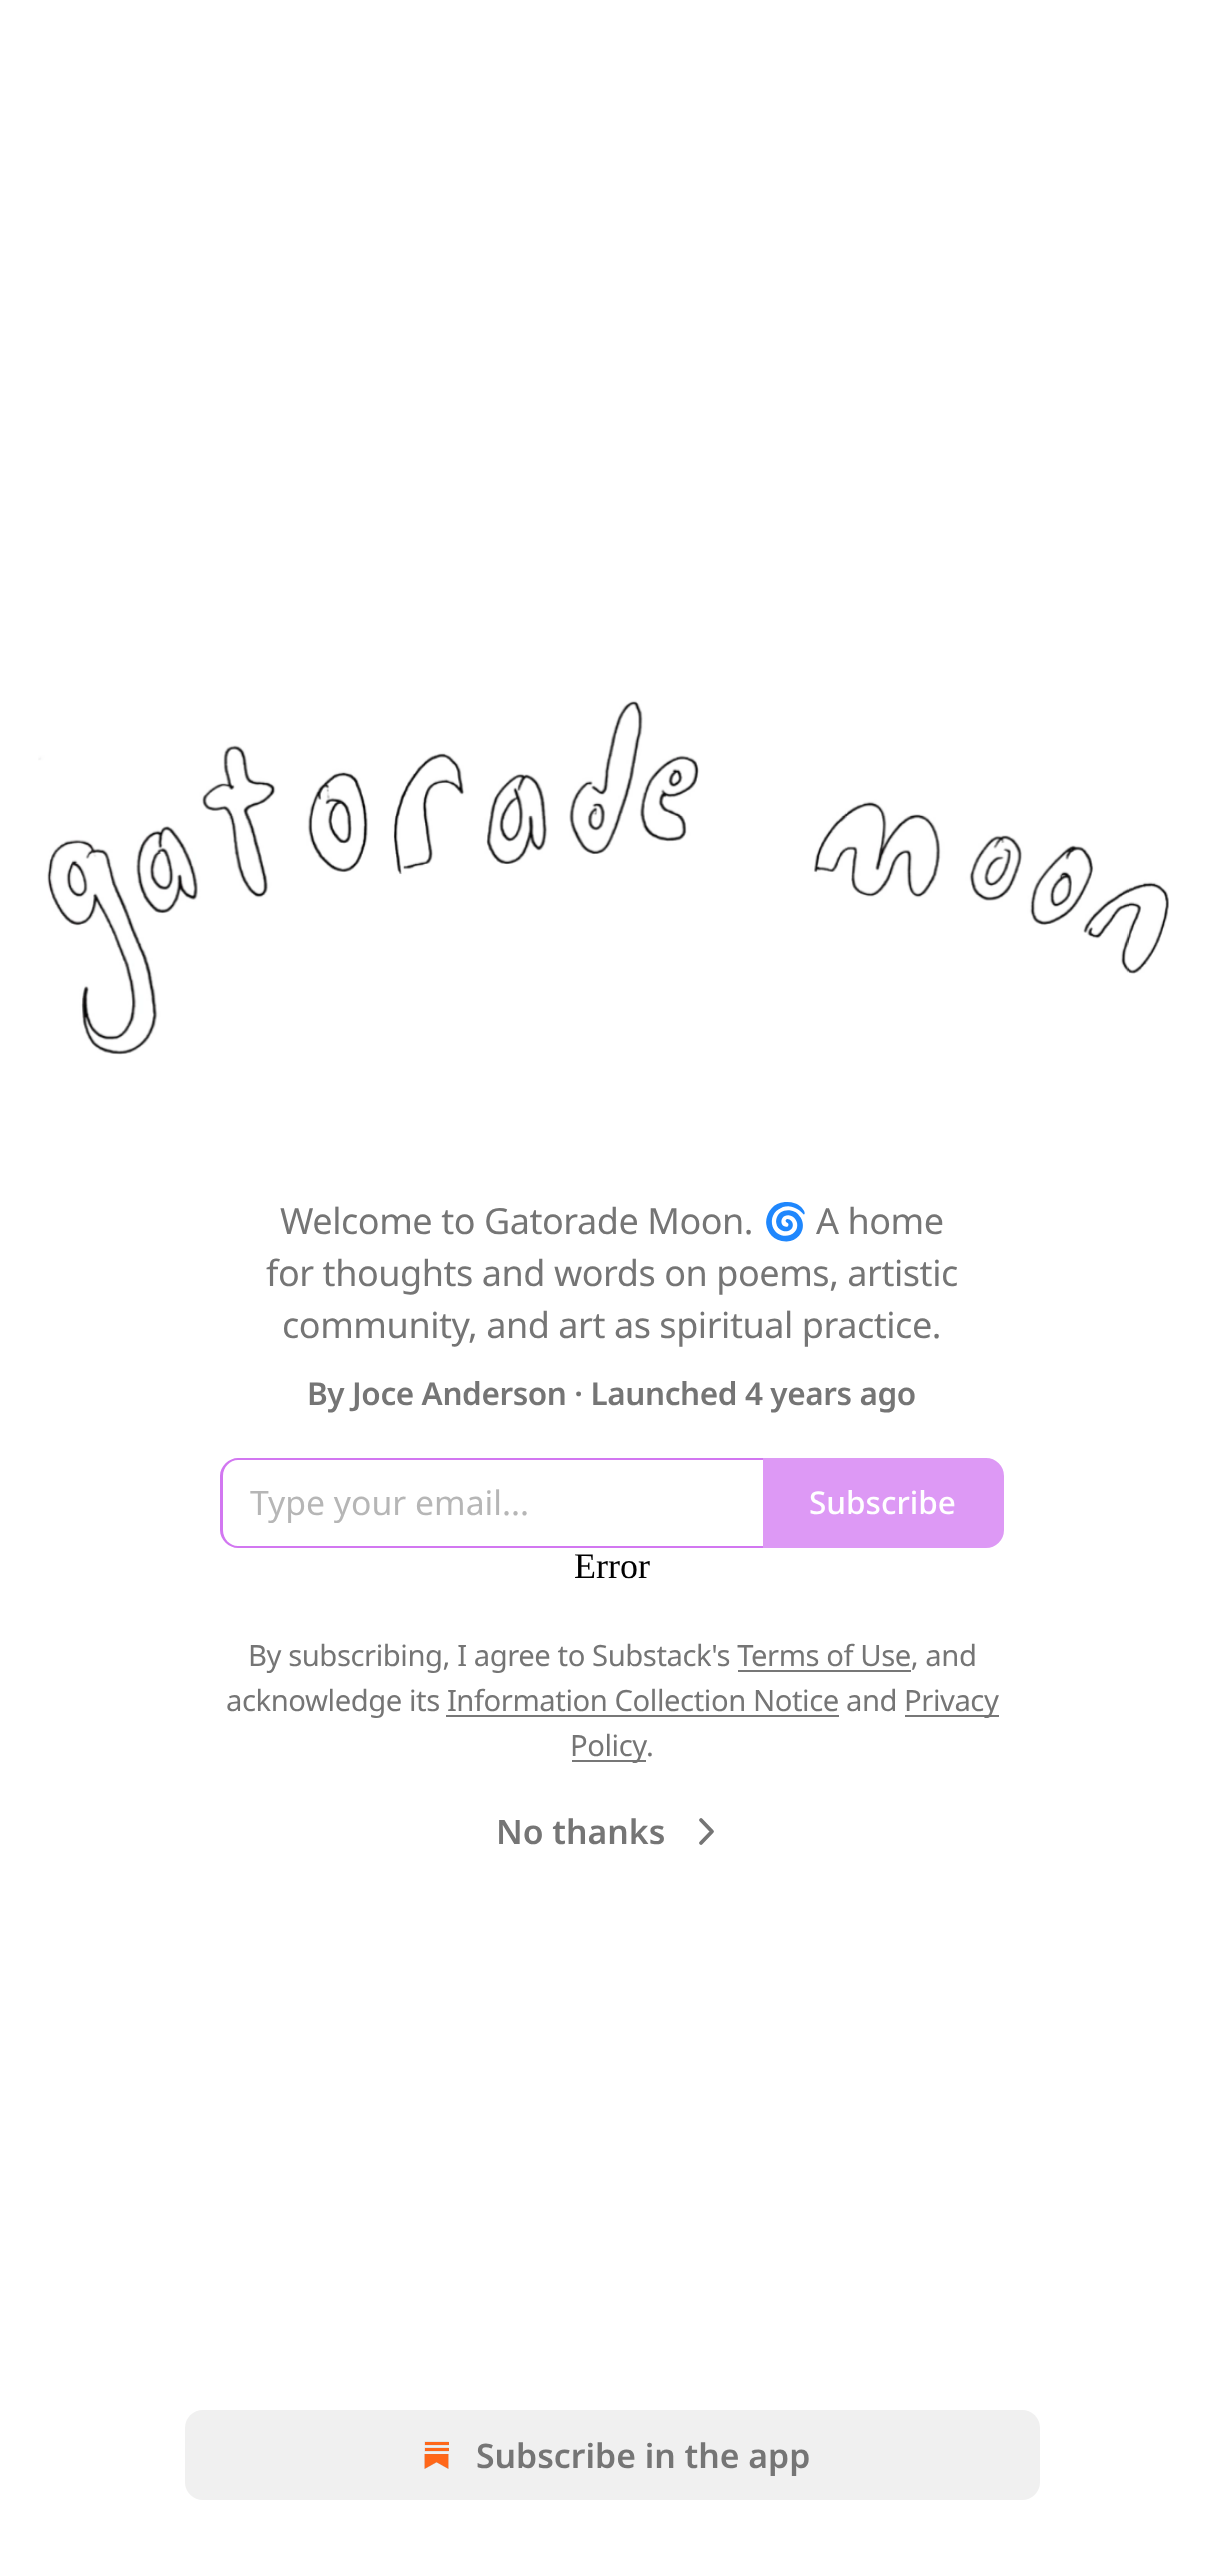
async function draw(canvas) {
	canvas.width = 1224;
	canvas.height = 2552;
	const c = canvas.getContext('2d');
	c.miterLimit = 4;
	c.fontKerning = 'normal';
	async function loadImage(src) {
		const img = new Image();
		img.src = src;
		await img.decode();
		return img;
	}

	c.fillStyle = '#fff';
	c.fillRect(0, 0, 1224, 2552);
	c.drawImage(await loadImage('img1.png'), 38, 700, 1131, 355);
	c.letterSpacing = '-0.45px';
	c.font = '36px Noto Sans';
	c.fillStyle = '#757575';
	c.fillText('Welcome to Gatorade Moon.', 280, 1234);
	c.font = '36px Noto Color Emoji';
	c.fillText('🌀', 763, 1234);
	c.font = '36px Noto Sans';
	for (const [text, x, y] of [
		['A home', 816, 1234],
		['for thoughts and words on poems, artistic', 266, 1286],
		['community, and art as spiritual practice.', 282, 1338],
	]) {
		c.fillText(text, x, y);
	}
	c.letterSpacing = '-0.4px';
	c.font = '600 31.5px Noto Sans';
	c.fillText('By Joce Anderson · Launched 4 years ago', 307, 1405);
	c.fillStyle = '#d277f1';
	c.beginPath();
	c.moveTo(238, 1458);
	c.lineTo(763, 1458);
	c.lineTo(763, 1548);
	c.lineTo(238, 1548);
	c.bezierCurveTo(229, 1548, 220, 1540, 220, 1530);
	c.lineTo(220, 1476);
	c.bezierCurveTo(220, 1466, 229, 1458, 238, 1458);
	c.closePath();
	c.moveTo(238, 1460);
	c.lineTo(763, 1460);
	c.lineTo(763, 1546);
	c.lineTo(238, 1546);
	c.bezierCurveTo(230, 1546, 223, 1539, 223, 1530);
	c.lineTo(223, 1476);
	c.bezierCurveTo(223, 1467, 230, 1460, 238, 1460);
	c.closePath();
	c.fill('evenodd');
	c.letterSpacing = '0px';
	c.font = '33.75px Noto Sans';
	c.fillStyle = '#b6b6b6';
	c.fillText('Type your email...', 250, 1515);
	c.fillStyle = '#dd99f5';
	c.beginPath();
	c.roundRect(764, 1459, 239, 88, [0, 17, 17, 0]);
	c.fill();
	c.strokeStyle = '#dd99f5';
	c.lineWidth = 2;
	c.stroke();
	c.font = '500 31.5px Noto Sans';
	c.fillStyle = '#fff';
	c.fillText('Subscribe', 809, 1514);
	c.font = '36px Liberation Serif';
	c.fillStyle = '#000';
	c.fillText('Error', 574, 1578);
	c.letterSpacing = '-0.45px';
	c.font = '29.25px Noto Sans';
	c.fillStyle = '#757575';
	c.fillText('By subscribing, I agree to Substack\'s Terms of Use, and', 248, 1666);
	c.fillStyle = '#777';
	c.fillRect(738, 1670, 173, 2);
	c.fillStyle = '#757575';
	c.fillText('acknowledge its Information Collection Notice and', 226, 1711);
	c.fillStyle = '#777';
	c.fillRect(905, 1715, 94, 2);
	c.fillStyle = '#757575';
	c.fillText('Privacy', 904, 1711);
	c.fillStyle = '#777';
	c.fillRect(446, 1715, 393, 2);
	c.fillRect(572, 1760, 74, 2);
	c.fillStyle = '#757575';
	c.fillText('Policy', 570, 1756);
	c.fillText('.', 646, 1756);
	c.letterSpacing = '0px';
	c.font = '600 33.75px Noto Sans';
	c.fillText('No thanks', 496, 1844);
	c.beginPath();
	c.moveTo(701, 1843);
	c.lineTo(712, 1831.5);
	c.lineTo(701, 1820);
	c.strokeStyle = '#757575';
	c.lineWidth = 3.8;
	c.lineCap = 'round';
	c.lineJoin = 'round';
	c.stroke();
	c.fillStyle = '#f0f0f0';
	c.beginPath();
	c.roundRect(185, 2410, 855, 90, 18);
	c.fill();
	c.drawImage(await loadImage('img2.png'), 424, 2441, 25, 28);
	c.fillStyle = '#757575';
	c.fillText('Subscribe in the app', 476, 2468);
}

draw(document.querySelector('canvas'));
